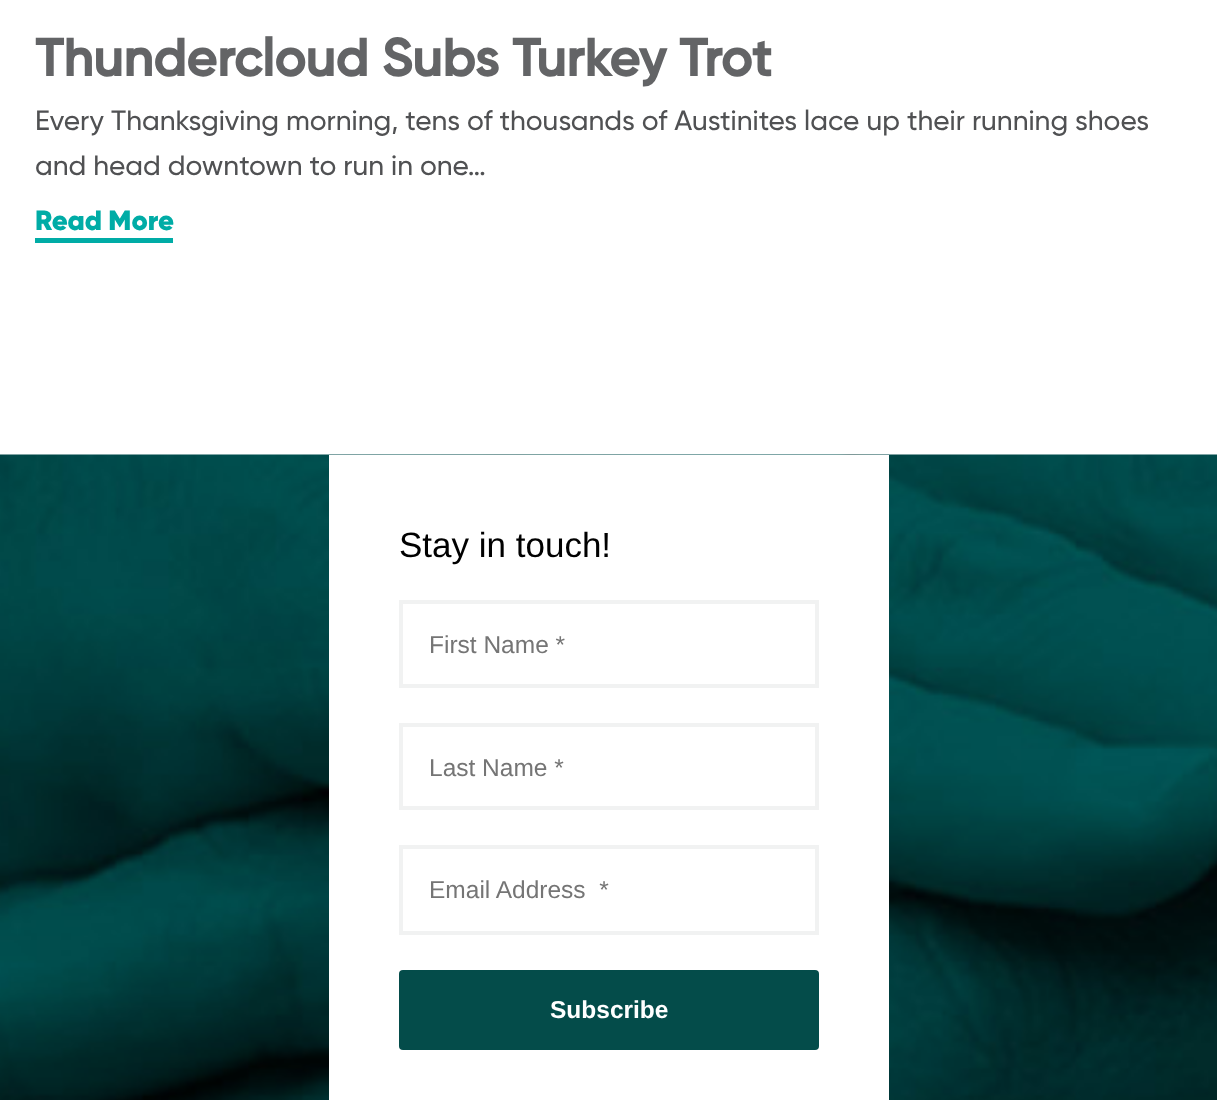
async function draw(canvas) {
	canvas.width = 1217;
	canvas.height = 1100;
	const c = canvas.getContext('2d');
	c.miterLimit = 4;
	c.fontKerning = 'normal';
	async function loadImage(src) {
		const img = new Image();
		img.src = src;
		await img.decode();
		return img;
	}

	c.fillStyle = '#fff';
	c.fillRect(0, 0, 1217, 1100);
	c.font = 'bold 52.5px Gilroy';
	c.fillStyle = '#636466';
	c.fillText('Thundercloud Subs Turkey Trot', 35, 76);
	c.font = '28px Gilroy';
	c.fillStyle = '#505153';
	c.fillText('Every Thanksgiving morning, tens of thousands of Austinites lace up their running shoes', 35, 130);
	c.fillText('and head downtown to run in one…', 35, 175);
	c.font = '28px "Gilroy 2"';
	c.fillStyle = '#00aca6';
	c.fillText('Read More', 35, 230);
	c.fillRect(35, 238, 138, 5);
	c.drawImage(await loadImage('img1.png'), 0, 454, 1217, 646);
	c.fillStyle = '#fff';
	c.fillRect(329, 455, 560, 645);
	c.font = '35px Liberation Sans';
	c.fillStyle = '#000';
	c.fillText('Stay in touch!', 399, 557);
	c.strokeStyle = '#f1f2f2';
	c.lineWidth = 4;
	c.strokeRect(401, 602, 416, 84);
	c.font = '24.5px Liberation Sans';
	c.fillStyle = '#757575';
	c.fillText('First Name *', 429, 653);
	c.strokeRect(401, 725, 416, 83);
	c.fillText('Last Name *', 429, 776);
	c.strokeRect(401, 847, 416, 86);
	c.fillText('Email Address  *', 429, 898);
	c.fillStyle = '#044c4a';
	c.beginPath();
	c.roundRect(399, 970, 420, 80, 4);
	c.fill();
	c.font = 'bold 24.5px Liberation Sans';
	c.fillStyle = '#fff';
	c.fillText('Subscribe', 550, 1018);
}

draw(document.querySelector('canvas'));
